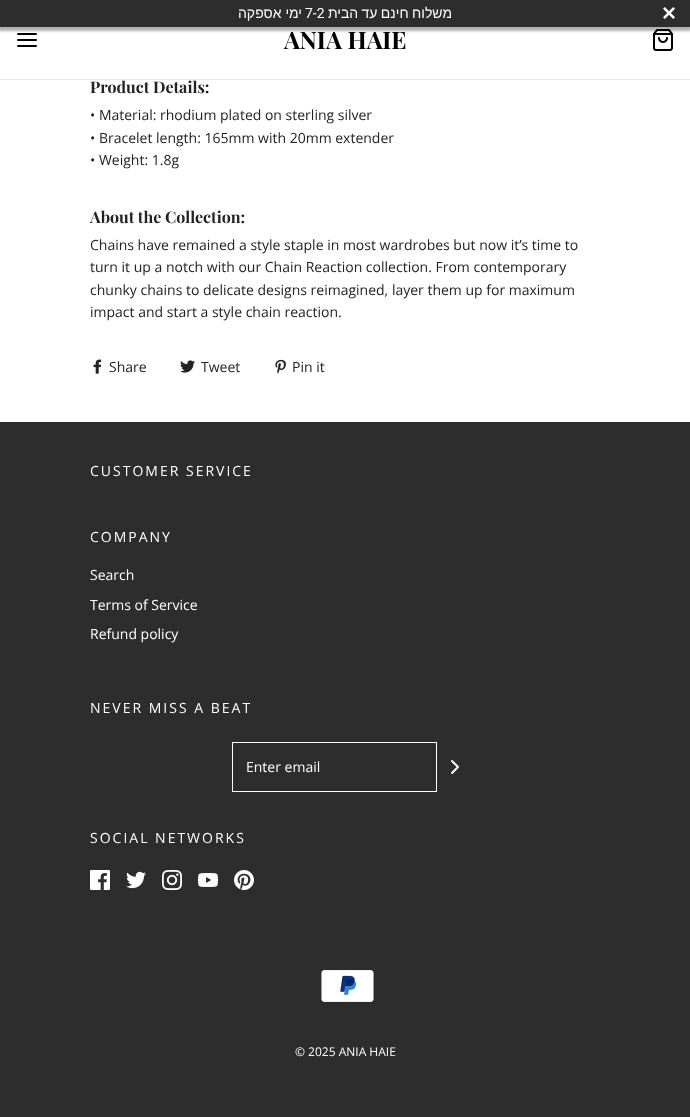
async function draw(canvas) {
	canvas.width = 690;
	canvas.height = 1117;
	const c = canvas.getContext('2d');
	c.miterLimit = 4;
	c.fontKerning = 'normal';
	async function loadImage(src) {
		const img = new Image();
		img.src = src;
		await img.decode();
		return img;
	}

	c.fillStyle = '#fff';
	c.fillRect(0, 0, 690, 1117);
	c.beginPath();
	c.moveTo(18, 40);
	c.lineTo(36, 40);
	c.moveTo(18, 34);
	c.lineTo(36, 34);
	c.moveTo(18, 46);
	c.lineTo(36, 46);
	c.strokeStyle = '#000';
	c.lineWidth = 2;
	c.lineCap = 'round';
	c.lineJoin = 'round';
	c.stroke();
	c.drawImage(await loadImage('img2.png'), 653, 29, 20, 22);
	c.fillStyle = '#0000004d';
	c.filter = 'blur(1px)';
	c.beginPath();
	c.rect(-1, 2, 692, 29);
	c.fill();
	c.filter = 'none';
	c.fillStyle = '#2d2d2d';
	c.fillRect(0, 0, 690, 27);
	c.direction = 'rtl';
	c.font = '14px Liberation Sans';
	c.fillStyle = '#fff';
	c.fillText('ימי אספקה', 302, 18);
	c.direction = 'ltr';
	c.font = '14px Roboto';
	c.fillText('7-2', 305, 18);
	c.wordSpacing = '-0.5px';
	c.direction = 'rtl';
	c.font = '14px Liberation Sans';
	c.fillText('משלוח חינם עד הבית', 452, 18);
	c.drawImage(await loadImage('img1.png'), 663, 7, 12, 12);
	c.fillStyle = '#e6e6e6';
	c.fillRect(0, 79, 690, 1);
	c.wordSpacing = '0px';
	c.direction = 'ltr';
	c.font = 'bold 24px Playfair Display';
	c.fillStyle = '#000';
	c.fillText('ANIA HAIE', 284, 49);
	c.font = 'bold 16px Playfair Display';
	c.fillStyle = '#222';
	c.fillText('Product Details:', 90, 93);
	c.font = '14px Open Sans';
	for (const [text, x, y] of [
		['• Material: rhodium plated on sterling silver', 90, 120],
		['• Bracelet length: 165mm with 20mm extender', 90, 143],
		['• Weight: 1.8g', 90, 165],
	]) {
		c.fillText(text, x, y);
	}
	c.font = 'bold 16px Playfair Display';
	c.fillText('About the Collection:', 90, 223);
	c.font = '14px Open Sans';
	for (const [text, x, y] of [
		['Chains have remained a style staple in most wardrobes but now it’s time to', 90, 250],
		['turn it up a notch with our Chain Reaction collection. From contemporary', 90, 272],
		['chunky chains to delicate designs reimagined, layer them up for maximum', 90, 295],
		['impact and start a style chain reaction.', 90, 317],
	]) {
		c.fillText(text, x, y);
	}
	c.drawImage(await loadImage('img3.png'), 93, 359, 9, 15);
	c.fillText('Share', 109, 372);
	c.drawImage(await loadImage('img4.png'), 180, 360, 15, 13);
	c.fillText('Tweet', 201, 372);
	c.drawImage(await loadImage('img5.png'), 275, 359, 11, 15);
	c.fillText('Pin it', 292, 372);
	c.fillStyle = '#2d2d2d';
	c.fillRect(0, 422, 690, 695);
	c.letterSpacing = '2px';
	c.fillStyle = '#fff';
	c.fillText('CUSTOMER SERVICE', 90, 476);
	c.fillText('COMPANY', 90, 542);
	c.letterSpacing = '0px';
	for (const [text, x, y] of [
		['Search', 90, 580],
		['Terms of Service', 90, 610],
		['Refund policy', 90, 639],
	]) {
		c.fillText(text, x, y);
	}
	c.letterSpacing = '2px';
	c.fillText('NEVER MISS A BEAT', 90, 713);
	c.strokeStyle = '#fff';
	c.lineWidth = 1;
	c.lineJoin = 'miter';
	c.strokeRect(232.5, 742.5, 204, 49);
	c.letterSpacing = '0px';
	c.fillText('Enter email', 246, 772);
	c.beginPath();
	c.moveTo(452, 773);
	c.lineTo(458, 767);
	c.lineTo(452, 761);
	c.lineWidth = 2;
	c.lineJoin = 'round';
	c.stroke();
	c.letterSpacing = '2px';
	c.fillText('SOCIAL NETWORKS', 90, 843);
	c.drawImage(await loadImage('img6.png'), 90, 870, 20, 20);
	c.drawImage(await loadImage('img7.png'), 126, 871, 20, 18);
	c.drawImage(await loadImage('img8.png'), 162, 870, 20, 20);
	c.drawImage(await loadImage('img9.png'), 198, 873, 20, 14);
	c.drawImage(await loadImage('img10.png'), 234, 870, 20, 20);
	c.drawImage(await loadImage('img11.png'), 321, 970, 53, 32);
	c.letterSpacing = '0px';
	c.font = '12px Open Sans';
	c.fillText('© 2025 ANIA HAIE', 295, 1056);
}

draw(document.querySelector('canvas'));
